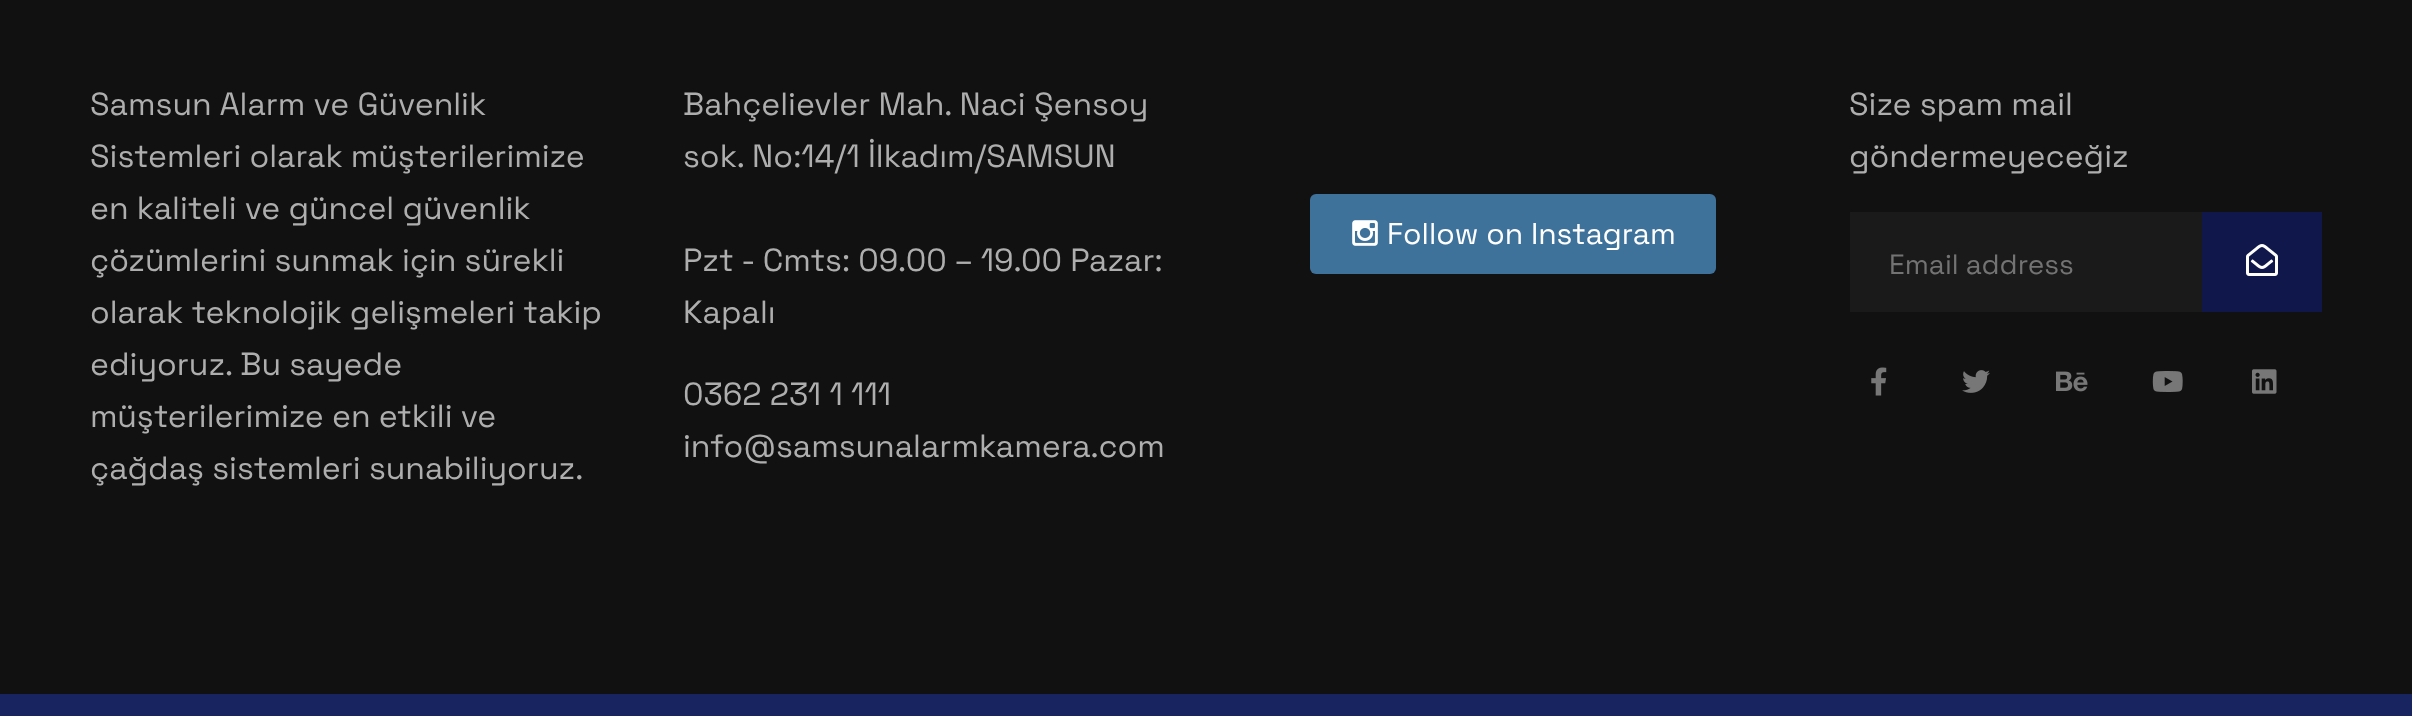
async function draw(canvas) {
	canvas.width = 2412;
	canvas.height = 716;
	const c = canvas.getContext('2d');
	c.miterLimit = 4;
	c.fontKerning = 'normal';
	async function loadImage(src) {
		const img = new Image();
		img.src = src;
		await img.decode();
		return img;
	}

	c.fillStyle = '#111';
	c.fillRect(0, 0, 2412, 716);
	c.font = '32px Space Grotesk';
	c.fillStyle = '#aeaeae';
	for (const [text, x, y] of [
		['Samsun Alarm ve Güvenlik', 90, 115],
		['Sistemleri olarak müşterilerimize', 90, 167],
		['en kaliteli ve güncel güvenlik', 90, 219],
		['çözümlerini sunmak için sürekli', 90, 271],
		['olarak teknolojik gelişmeleri takip', 90, 323],
		['ediyoruz. Bu sayede', 90, 375],
		['müşterilerimize en etkili ve', 90, 427],
		['çağdaş sistemleri sunabiliyoruz.', 90, 479],
		['Bahçelievler Mah. Naci Şensoy', 683, 115],
		['sok. No:14/1 İlkadım/SAMSUN', 683, 167],
		['Pzt - Cmts: 09.00 – 19.00 Pazar:', 683, 271],
		['Kapalı', 683, 323],
		['0362 231 1 111', 683, 405],
		['info@samsunalarmkamera.com', 683, 457],
	]) {
		c.fillText(text, x, y);
	}
	c.fillStyle = '#3f729b';
	c.beginPath();
	c.roundRect(1310, 194, 406, 80, 6);
	c.fill();
	c.drawImage(await loadImage('img1.png'), 1352, 220, 26, 26);
	c.font = '30px Space Grotesk';
	c.fillStyle = '#fff';
	c.fillText('Follow on Instagram', 1387, 244);
	c.font = '32px Space Grotesk';
	c.fillStyle = '#aeaeae';
	c.fillText('Size spam mail', 1849, 115);
	c.fillText('göndermeyeceğiz', 1849, 167);
	c.fillStyle = '#1a1a1a';
	c.fillRect(1850, 212, 352, 100);
	c.font = '28px Space Grotesk';
	c.fillStyle = '#737373';
	c.fillText('Email address', 1889, 274);
	c.fillStyle = '#10184b';
	c.fillRect(2202, 212, 120, 100);
	c.drawImage(await loadImage('img2.png'), 2246, 244, 32, 32);
	c.drawImage(await loadImage('img3.png'), 1871, 367, 16, 29);
	c.drawImage(await loadImage('img4.png'), 1962, 370, 28, 23);
	c.drawImage(await loadImage('img5.png'), 2056, 371, 32, 21);
	c.drawImage(await loadImage('img6.png'), 2152, 371, 31, 21);
	c.drawImage(await loadImage('img7.png'), 2252, 369, 25, 25);
	c.fillStyle = '#182460';
	c.fillRect(0, 694, 2412, 22);
}

draw(document.querySelector('canvas'));
